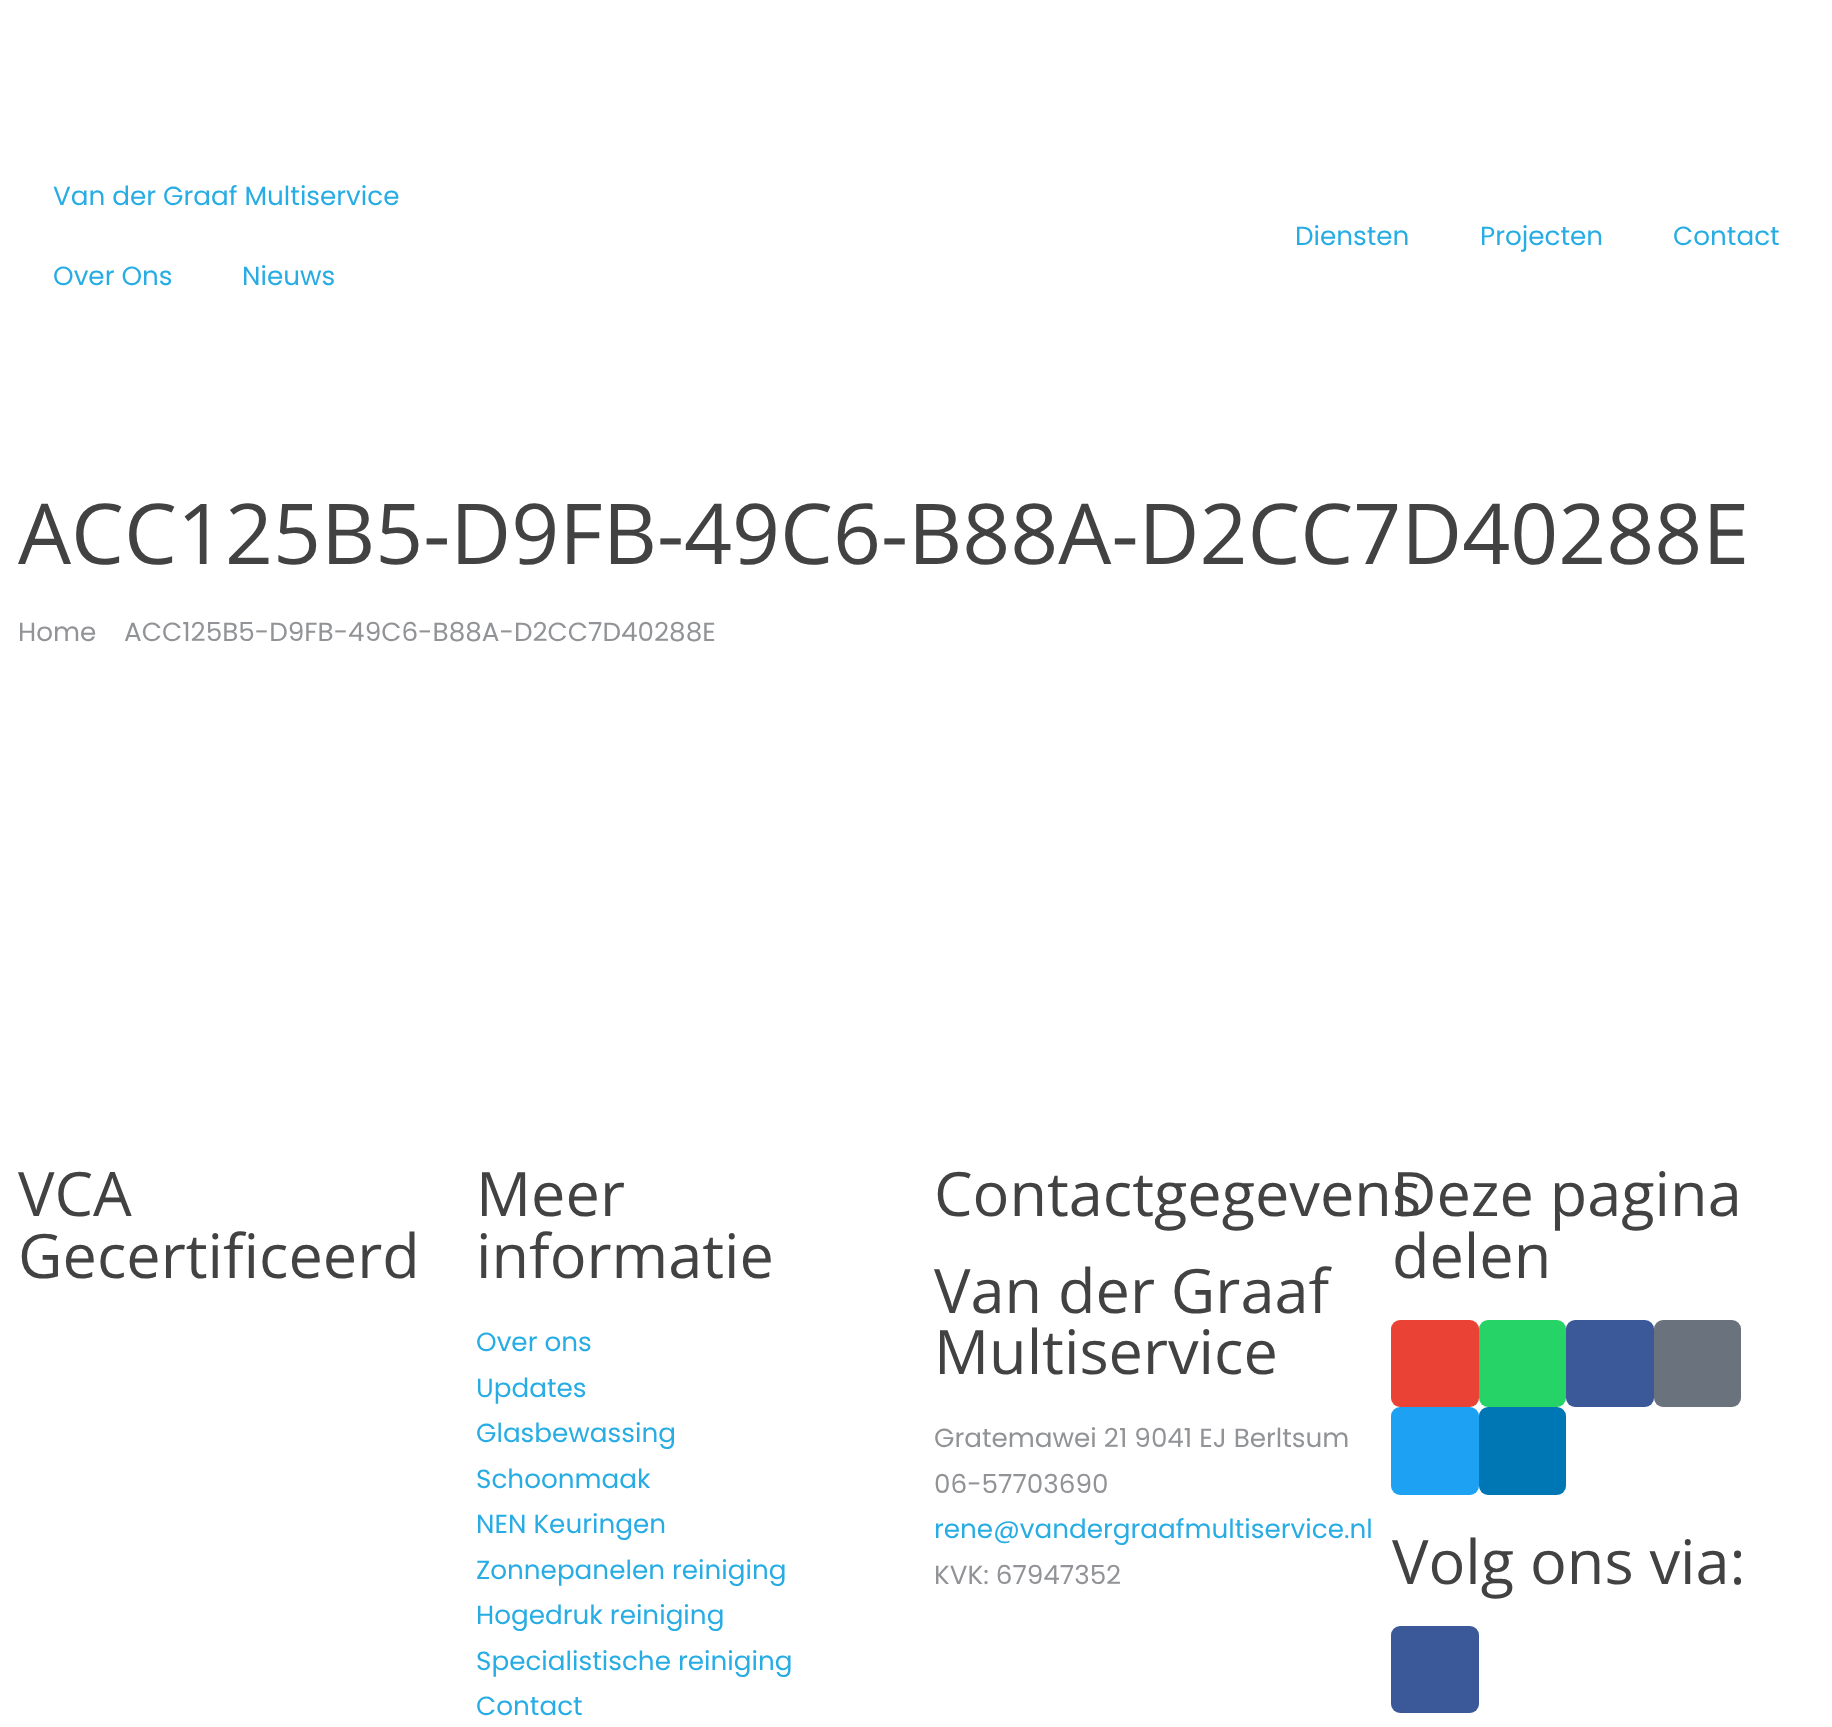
async function draw(canvas) {
	canvas.width = 1832;
	canvas.height = 1727;
	const c = canvas.getContext('2d');
	c.miterLimit = 4;
	c.fontKerning = 'normal';

	c.fillStyle = '#fff';
	c.fillRect(0, 0, 1832, 1727);
	c.font = '26.25px Poppins';
	c.fillStyle = '#27ace3';
	for (const [text, x, y] of [
		['Van der Graaf Multiservice', 53, 205],
		['Over Ons', 53, 285],
		['Nieuws', 242, 285],
		['Diensten', 1295, 245],
		['Projecten', 1480, 245],
		['Contact', 1673, 245],
	]) {
		c.fillText(text, x, y);
	}
	c.font = '84px Open Sans';
	c.fillStyle = '#424242';
	c.fillText('ACC125B5-D9FB-49C6-B88A-D2CC7D40288E', 18, 564);
	c.font = '26.25px Poppins';
	c.fillStyle = '#919396';
	c.fillText('Home', 18, 641);
	c.fillText('ACC125B5-D9FB-49C6-B88A-D2CC7D40288E', 124, 641);
	c.font = '61.25px Open Sans';
	c.fillStyle = '#424242';
	for (const [text, x, y] of [
		['VCA', 18, 1216],
		['Gecertificeerd', 18, 1278],
		['Meer', 476, 1216],
		['informatie', 476, 1278],
	]) {
		c.fillText(text, x, y);
	}
	c.font = '26.25px Poppins';
	c.fillStyle = '#27ace3';
	for (const [text, x, y] of [
		['Over ons', 476, 1351],
		['Updates', 476, 1397],
		['Glasbewassing', 476, 1442],
		['Schoonmaak', 476, 1488],
		['NEN Keuringen', 476, 1533],
		['Zonnepanelen reiniging', 476, 1579],
		['Hogedruk reiniging', 476, 1624],
		['Specialistische reiniging', 476, 1670],
		['Contact', 476, 1715],
	]) {
		c.fillText(text, x, y);
	}
	c.font = '61.25px Open Sans';
	c.fillStyle = '#424242';
	for (const [text, x, y] of [
		['Contactgegevens', 934, 1216],
		['Van der Graaf', 934, 1313],
		['Multiservice', 934, 1374],
	]) {
		c.fillText(text, x, y);
	}
	c.font = '26.25px Poppins';
	c.fillStyle = '#919396';
	c.fillText('Gratemawei 21 9041 EJ Berltsum', 934, 1447);
	c.fillText('06-57703690', 934, 1493);
	c.fillStyle = '#27ace3';
	c.fillText('rene@vandergraafmultiservice.nl', 934, 1538);
	c.fillStyle = '#919396';
	c.fillText('KVK: 67947352', 934, 1584);
	c.font = '61.25px Open Sans';
	c.fillStyle = '#424242';
	c.fillText('Deze pagina', 1392, 1216);
	c.fillText('delen', 1392, 1278);
	c.fillStyle = '#ea4335';
	c.beginPath();
	c.roundRect(1391, 1320, 88, 87, 9);
	c.fill();
	c.fillStyle = '#25d366';
	c.beginPath();
	c.roundRect(1479, 1320, 87, 87, 9);
	c.fill();
	c.fillStyle = '#3b5998';
	c.beginPath();
	c.roundRect(1566, 1320, 88, 87, 9);
	c.fill();
	c.fillStyle = '#69727d';
	c.beginPath();
	c.roundRect(1654, 1320, 87, 87, 9);
	c.fill();
	c.fillStyle = '#1da1f2';
	c.beginPath();
	c.roundRect(1391, 1407, 88, 88, 9);
	c.fill();
	c.fillStyle = '#0077b5';
	c.beginPath();
	c.roundRect(1479, 1407, 87, 88, 9);
	c.fill();
	c.fillStyle = '#424242';
	c.fillText('Volg ons via:', 1392, 1584);
	c.fillStyle = '#3b5998';
	c.beginPath();
	c.roundRect(1391, 1626, 88, 87, 9);
	c.fill();
}

draw(document.querySelector('canvas'));
